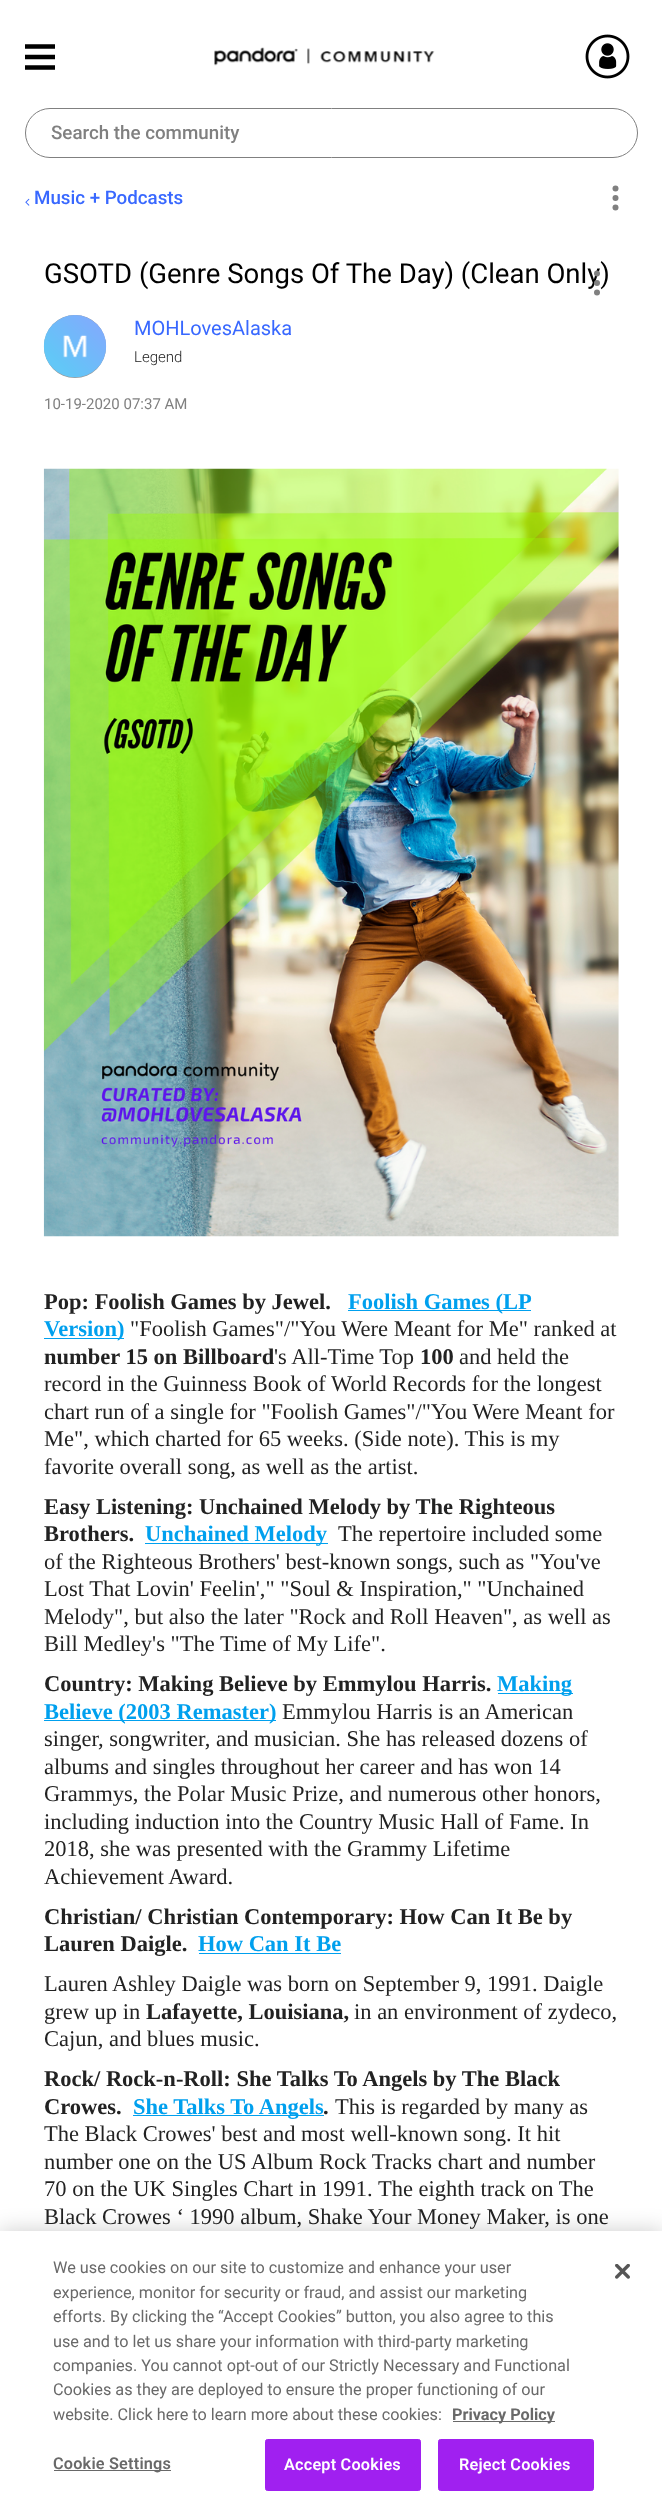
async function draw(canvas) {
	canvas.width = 662;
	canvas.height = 2508;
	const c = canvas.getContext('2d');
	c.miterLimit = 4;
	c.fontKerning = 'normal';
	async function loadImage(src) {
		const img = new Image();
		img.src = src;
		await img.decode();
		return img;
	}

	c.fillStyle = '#fff';
	c.fillRect(0, 0, 662, 2508);
	c.drawImage(await loadImage('img1.png'), 25, 44, 30, 26);
	c.drawImage(await loadImage('img2.png'), 214, 47, 221, 19);
	c.drawImage(await loadImage('img3.png'), 585, 34, 45, 45);
	c.beginPath();
	c.roundRect(25.5, 108.5, 612, 49, 24.5);
	c.strokeStyle = '#808080';
	c.stroke();
	c.font = '500 18.75px Roboto';
	c.fillStyle = '#808080';
	c.fillText('Search the community', 51, 139);
	c.drawImage(await loadImage('img4.png'), 25, 198, 5, 8);
	c.fillStyle = '#3868ff';
	c.fillText('Music + Podcasts', 34, 204);
	c.fillStyle = '#808080';
	c.beginPath();
	c.arc(615.5, 188.5, 3, 0, 2 * Math.PI);
	c.fill();
	c.beginPath();
	c.arc(615.5, 198, 3, 0, 2 * Math.PI);
	c.fill();
	c.beginPath();
	c.arc(615.5, 207.5, 3, 0, 2 * Math.PI);
	c.fill();
	c.font = '27.5px Roboto';
	c.fillStyle = '#000';
	c.fillText('GSOTD (Genre Songs Of The Day) (Clean Only)', 44, 283);
	c.fillStyle = '#999';
	c.filter = 'blur(0.5px)';
	c.beginPath();
	c.roundRect(44, 315, 62, 63, 31);
	c.fill();
	c.filter = 'none';
	c.drawImage(await loadImage('img5.png'), 43, 315, 64, 63);
	c.font = '20px Roboto';
	c.fillStyle = '#3868ff';
	c.fillText('MOHLovesAlaska', 134, 335);
	c.font = '300 15px Roboto';
	c.fillStyle = '#222';
	c.fillText('Legend', 134, 362);
	c.font = '15px Roboto';
	c.fillStyle = '#808080';
	c.fillText('10-19-2020 07:37 AM', 44, 409);
	c.beginPath();
	c.arc(597, 273.5, 3, 0, 2 * Math.PI);
	c.fill();
	c.beginPath();
	c.arc(597, 283, 3, 0, 2 * Math.PI);
	c.fill();
	c.beginPath();
	c.arc(597, 292.5, 3, 0, 2 * Math.PI);
	c.fill();
	c.drawImage(await loadImage('img6.png'), 43, 468, 576, 769);
	c.font = 'bold 22.5px Liberation Serif';
	c.fillStyle = '#222';
	c.fillText('Pop: Foolish Games by Jewel.', 44, 1309);
	c.fillStyle = '#00a0ee';
	c.fillRect(348, 1310, 183, 1);
	c.fillText('Foolish Games (LP', 348, 1309);
	c.fillRect(44, 1338, 80, 1);
	c.fillText('Version)', 44, 1336);
	c.font = '22.5px Liberation Serif';
	c.fillStyle = '#222';
	c.fillText('"Foolish Games"/"You Were Meant for Me" ranked at', 130, 1336);
	c.font = 'bold 22.5px Liberation Serif';
	c.fillText('number 15 on Billboard', 44, 1364);
	c.font = '22.5px Liberation Serif';
	c.fillText('\'s All-Time Top', 274, 1364);
	c.font = 'bold 22.5px Liberation Serif';
	c.fillText('100', 420, 1364);
	c.font = '22.5px Liberation Serif';
	for (const [text, x, y] of [
		['and held the', 459, 1364],
		['record in the Guinness Book of World Records for the longest', 44, 1391],
		['chart run of a single for "Foolish Games"/"You Were Meant for', 44, 1419],
		['Me", which charted for 65 weeks. (Side note). This is my', 44, 1446],
		['favorite overall song, as well as the artist.', 44, 1474],
	]) {
		c.fillText(text, x, y);
	}
	c.font = 'bold 22.5px Liberation Serif';
	c.fillText('Easy Listening: Unchained Melody by The Righteous', 44, 1514);
	c.fillText('Brothers.', 44, 1541);
	c.fillStyle = '#00a0ee';
	c.fillRect(145, 1543, 183, 1);
	c.fillText('Unchained Melody', 145, 1541);
	c.font = '22.5px Liberation Serif';
	c.fillStyle = '#222';
	for (const [text, x, y] of [
		['The repertoire included some', 338, 1541],
		['of the Righteous Brothers\' best-known songs, such as "You\'ve', 44, 1569],
		['Lost That Lovin\' Feelin\'," "Soul & Inspiration," "Unchained', 44, 1596],
		['Melody", but also the later "Rock and Roll Heaven", as well as', 44, 1624],
		['Bill Medley\'s "The Time of My Life".', 44, 1651],
	]) {
		c.fillText(text, x, y);
	}
	c.font = 'bold 22.5px Liberation Serif';
	c.fillText('Country: Making Believe by Emmylou Harris.', 44, 1691);
	c.fillStyle = '#00a0ee';
	c.fillRect(498, 1693, 75, 1);
	c.fillText('Making', 497, 1691);
	c.fillRect(44, 1720, 232, 1);
	c.fillText('Believe (2003 Remaster)', 44, 1719);
	c.font = '22.5px Liberation Serif';
	c.fillStyle = '#222';
	for (const [text, x, y] of [
		['Emmylou Harris is an American', 282, 1719],
		['singer, songwriter, and musician. She has released dozens of', 44, 1746],
		['albums and singles throughout her career and has won 14', 44, 1774],
		['Grammys, the Polar Music Prize, and numerous other honors,', 44, 1801],
		['including induction into the Country Music Hall of Fame. In', 44, 1829],
		['2018, she was presented with the Grammy Lifetime', 44, 1856],
		['Achievement Award.', 44, 1884],
	]) {
		c.fillText(text, x, y);
	}
	c.font = 'bold 22.5px Liberation Serif';
	c.fillText('Christian/ Christian Contemporary: How Can It Be by', 44, 1924);
	c.fillText('Lauren Daigle.', 44, 1951);
	c.fillStyle = '#00a0ee';
	c.fillText('How Can It Be', 198, 1951);
	c.fillRect(199, 1953, 142, 1);
	c.font = '22.5px Liberation Serif';
	c.fillStyle = '#222';
	c.fillText('Lauren Ashley Daigle was born on September 9, 1991. Daigle', 44, 1991);
	c.fillText('grew up in', 44, 2019);
	c.font = 'bold 22.5px Liberation Serif';
	c.fillText('Lafayette, Louisiana,', 146, 2019);
	c.font = '22.5px Liberation Serif';
	c.fillText('in an environment of zydeco,', 354, 2019);
	c.fillText('Cajun, and blues music.', 44, 2046);
	c.font = 'bold 22.5px Liberation Serif';
	c.fillText('Rock/ Rock-n-Roll: She Talks To Angels by The Black', 44, 2086);
	c.fillText('Crowes.', 44, 2114);
	c.fillStyle = '#00a0ee';
	c.fillRect(133, 2115, 191, 1);
	c.fillText('She Talks To Angels', 133, 2114);
	c.fillStyle = '#222';
	c.fillText('.', 323, 2114);
	c.font = '22.5px Liberation Serif';
	for (const [text, x, y] of [
		['This is regarded by many as', 335, 2114],
		['The Black Crowes\' best and most well-known song. It hit', 44, 2141],
		['number one on the US Album Rock Tracks chart and number', 44, 2169],
		['70 on the UK Singles Chart in 1991. The eighth track on The', 44, 2196],
		['Black Crowes ‘ 1990 album, Shake Your Money Maker, is one', 44, 2224],
	]) {
		c.fillText(text, x, y);
	}
	c.fillStyle = '#00000033';
	c.filter = 'blur(11px)';
	c.beginPath();
	c.rect(0, 2231, 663, 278);
	c.fill();
	c.filter = 'none';
	c.fillStyle = '#fff';
	c.fillRect(0, 2231, 662, 277);
	c.font = '16.25px Roboto';
	c.fillStyle = '#696969';
	for (const [text, x, y] of [
		['We use cookies on our site to customize and enhance your user', 53, 2273],
		['experience, monitor for security or fraud, and assist our marketing', 53, 2298],
		['efforts. By clicking the “Accept Cookies” button, you also agree to this', 53, 2322],
		['use and to let us share your information with third-party marketing', 53, 2347],
		['companies. You cannot opt-out of our Strictly Necessary and Functional', 53, 2371],
		['Cookies as they are deployed to ensure the proper functioning of our', 53, 2395],
		['website. Click here to learn more about these cookies:', 53, 2420],
	]) {
		c.fillText(text, x, y);
	}
	c.fillRect(453, 2421, 102, 1);
	c.font = 'bold 16.25px Roboto';
	c.fillText('Privacy Policy', 452, 2420);
	c.fillRect(54, 2470, 117, 1);
	c.letterSpacing = '0.2px';
	c.font = '600 16.25px Roboto';
	c.fillText('Cookie Settings', 53, 2469);
	c.fillStyle = '#a020f0';
	c.beginPath();
	c.roundRect(265.5, 2439.5, 155, 51, 2);
	c.fill();
	c.strokeStyle = '#a020f0';
	c.stroke();
	c.fillStyle = '#fff';
	c.fillText('Accept Cookies', 284, 2470);
	c.fillStyle = '#a020f0';
	c.beginPath();
	c.roundRect(438.5, 2439.5, 155, 51, 2);
	c.fill();
	c.stroke();
	c.fillStyle = '#fff';
	c.fillText('Reject Cookies', 459, 2470);
	c.drawImage(await loadImage('img7.png'), 615, 2264, 15, 15);
}

draw(document.querySelector('canvas'));
